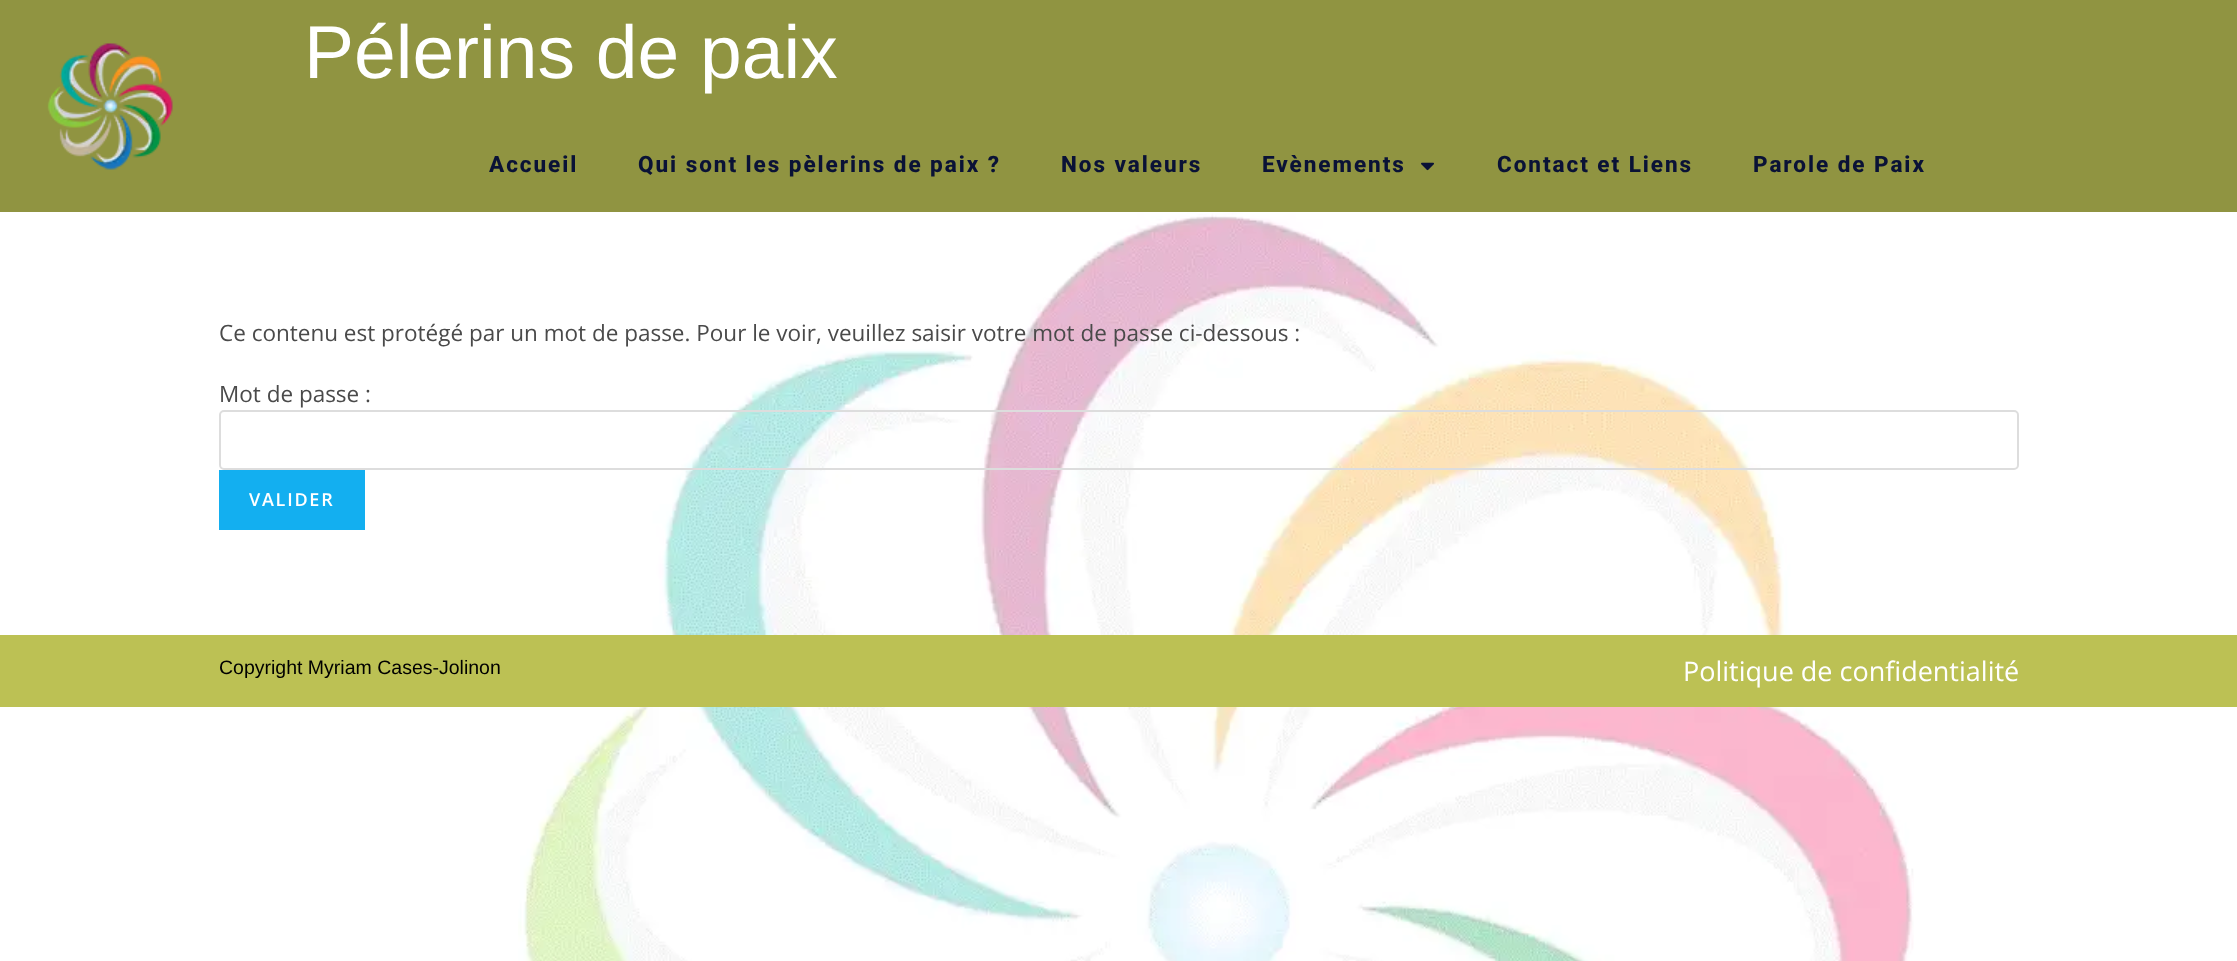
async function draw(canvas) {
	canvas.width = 2237;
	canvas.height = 961;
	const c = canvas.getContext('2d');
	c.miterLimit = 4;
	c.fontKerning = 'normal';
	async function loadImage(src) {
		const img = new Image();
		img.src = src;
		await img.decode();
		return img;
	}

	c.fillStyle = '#fff';
	c.fillRect(0, 0, 2237, 961);
	c.drawImage(await loadImage('img1.png'), 518, 212, 1396, 749);
	c.fillStyle = '#909441';
	c.fillRect(0, 0, 2237, 212);
	c.drawImage(await loadImage('img2.png'), 47, 43, 126, 127);
	c.font = '75px Liberation Sans';
	c.fillStyle = '#fff';
	c.fillText('Pélerins de paix', 304, 78);
	c.letterSpacing = '1.95px';
	c.font = '800 22.5px Roboto';
	c.fillStyle = '#0a1236';
	for (const [text, x, y] of [
		['Accueil', 489, 172],
		['Qui sont les pèlerins de paix ?', 638, 172],
		['Nos valeurs', 1061, 172],
		['Evènements', 1262, 172],
	]) {
		c.fillText(text, x, y);
	}
	c.drawImage(await loadImage('img3.png'), 1421, 162, 13, 9);
	c.fillText('Contact et Liens', 1497, 172);
	c.fillText('Parole de Paix', 1753, 172);
	c.letterSpacing = '0px';
	c.font = '22.5px Open Sans';
	c.fillStyle = '#4a4a4a';
	c.fillText('Ce contenu est protégé par un mot de passe. Pour le voir, veuillez saisir votre mot de passe ci-dessous :', 219, 341);
	c.fillText('Mot de passe :', 219, 402);
	c.beginPath();
	c.roundRect(220, 411, 1798, 58, 4);
	c.strokeStyle = '#ddd';
	c.lineWidth = 2;
	c.stroke();
	c.fillStyle = '#13aff0';
	c.fillRect(219, 470, 146, 60);
	c.letterSpacing = '1.75px';
	c.font = '600 18px Open Sans';
	c.fillStyle = '#fff';
	c.fillText('VALIDER', 249, 506);
	c.fillStyle = '#bcc154';
	c.fillRect(0, 635, 2237, 72);
	c.letterSpacing = '0px';
	c.font = '19.5px Liberation Sans';
	c.fillStyle = '#000';
	c.fillText('Copyright Myriam Cases-Jolinon', 219, 674);
	c.font = '27px Open Sans';
	c.fillStyle = '#fff';
	c.fillText('Politique de confidentialité', 1683, 681);
}

draw(document.querySelector('canvas'));
